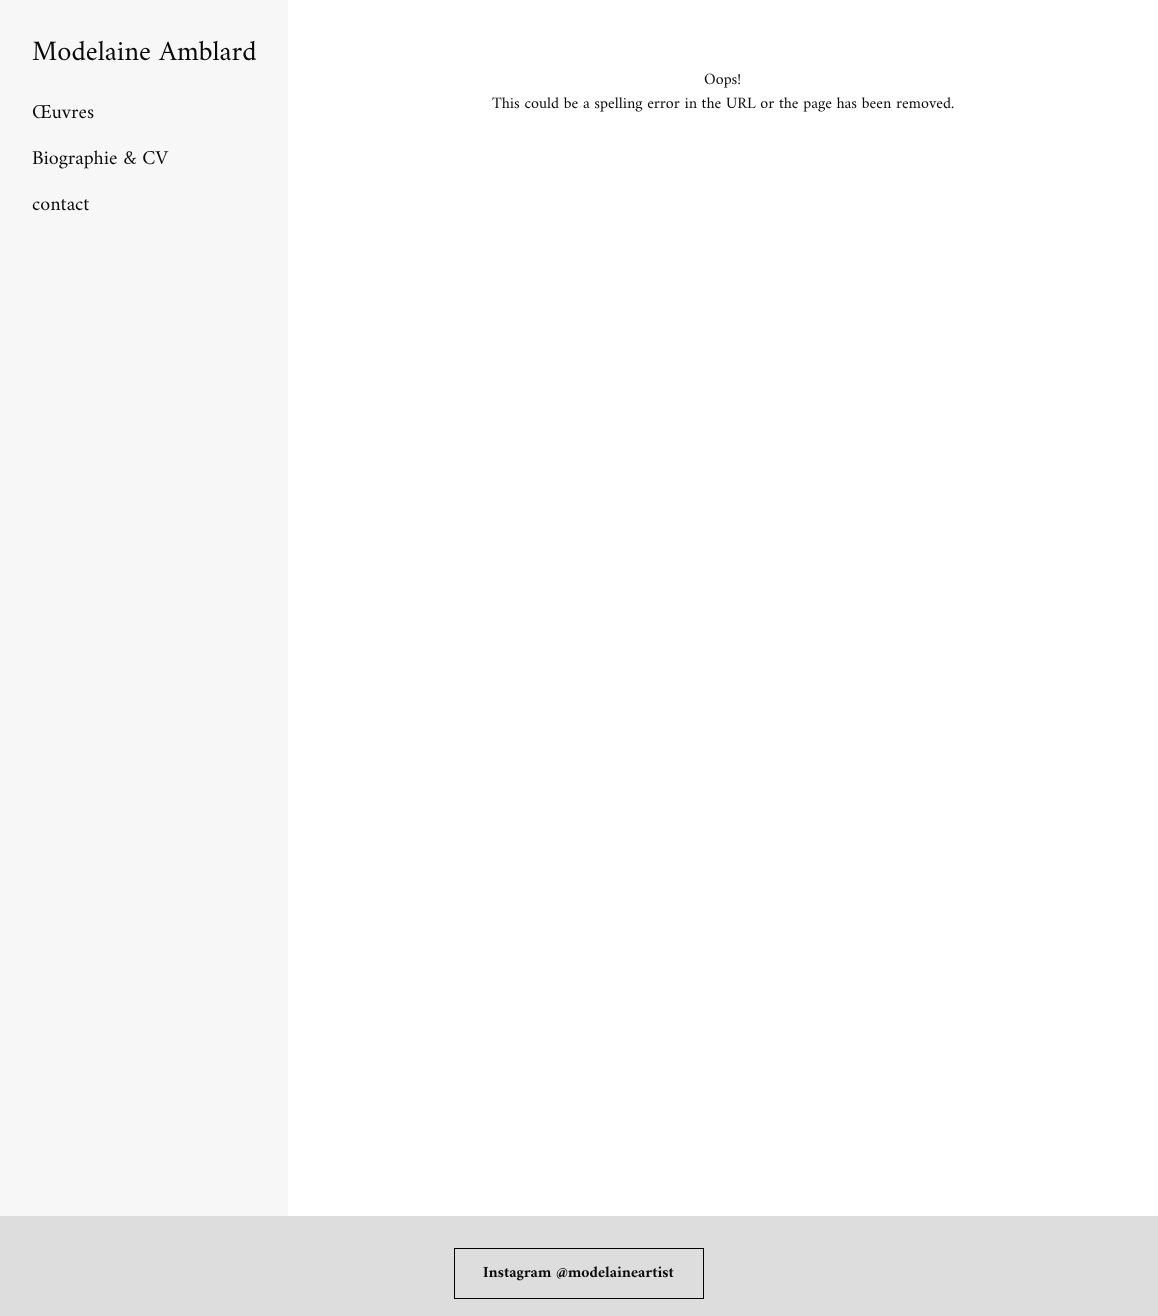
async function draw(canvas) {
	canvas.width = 1158;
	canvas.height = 1316;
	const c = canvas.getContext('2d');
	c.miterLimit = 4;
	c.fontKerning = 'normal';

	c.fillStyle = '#fff';
	c.fillRect(0, 0, 1158, 1316);
	c.fillStyle = '#f7f7f7';
	c.fillRect(0, 0, 288, 1216);
	c.font = '28.5px Amiri';
	c.fillStyle = '#0a0a0a';
	c.fillText('Modelaine Amblard', 32, 60);
	c.font = '20px Amiri';
	for (const [text, x, y] of [
		['Œuvres', 32, 118],
		['Biographie & CV', 32, 164],
		['contact', 32, 210],
	]) {
		c.fillText(text, x, y);
	}
	c.font = '16px Amiri';
	c.fillText('Oops!', 704, 84);
	c.fillText('This could be a spelling error in the URL or the page has been removed.', 492, 108);
	c.fillStyle = '#ddd';
	c.fillRect(0, 1216, 1158, 100);
	c.strokeStyle = '#000';
	c.strokeRect(454.5, 1248.5, 249, 50);
	c.font = 'bold 15.75px Amiri';
	c.fillStyle = '#0a0a0a';
	c.fillText('Instagram @modelaineartist', 483, 1277);
}

draw(document.querySelector('canvas'));
